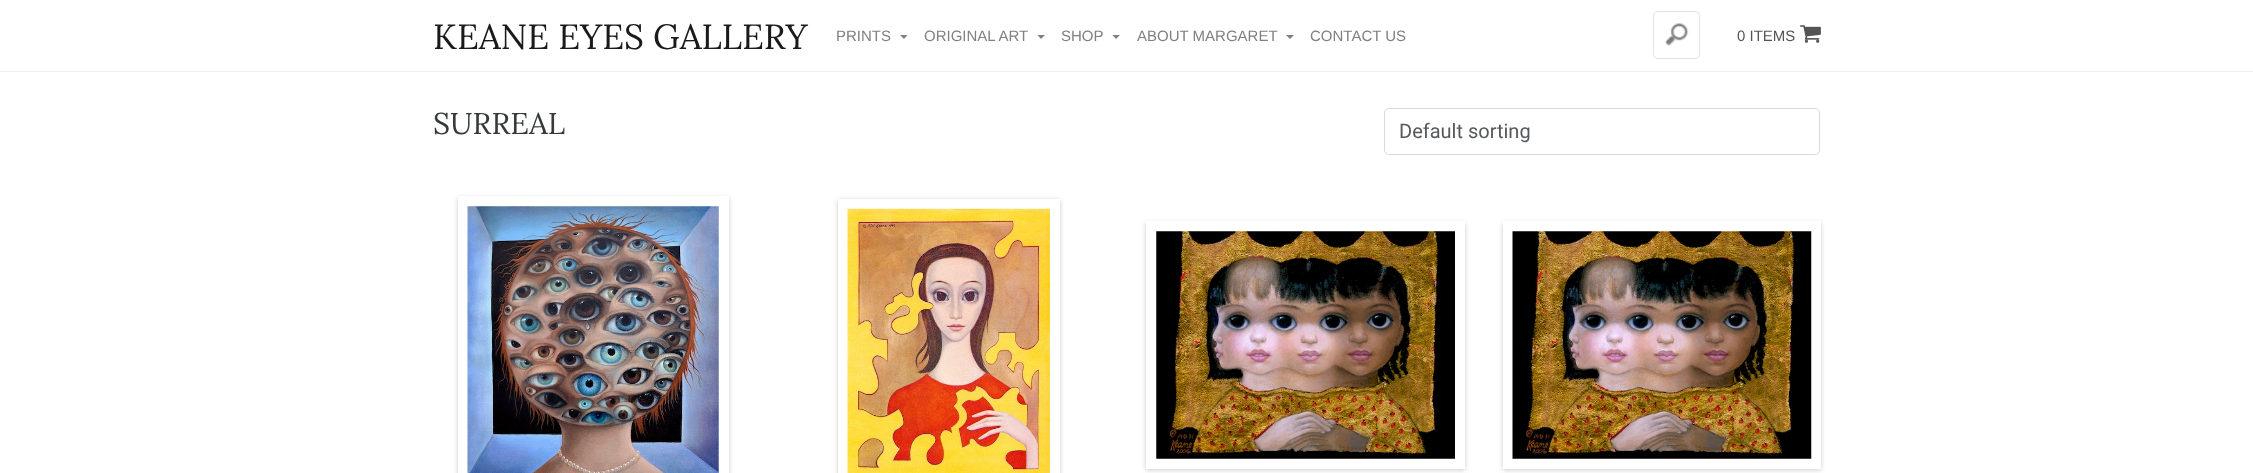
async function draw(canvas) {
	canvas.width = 2253;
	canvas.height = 473;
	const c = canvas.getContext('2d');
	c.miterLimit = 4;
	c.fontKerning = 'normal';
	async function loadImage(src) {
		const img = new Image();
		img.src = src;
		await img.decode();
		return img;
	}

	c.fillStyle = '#fff';
	c.fillRect(0, 0, 2253, 473);
	c.fillStyle = '#f0f0f0';
	c.fillRect(0, 71, 2253, 1);
	c.font = '35px Lora';
	c.fillStyle = '#1a1a1a';
	c.fillText('KEANE EYES GALLERY', 433, 49);
	c.font = '15px Liberation Sans';
	c.fillStyle = '#808080';
	c.fillText('PRINTS', 836, 41);
	c.beginPath();
	c.moveTo(900, 35);
	c.lineTo(907.5, 35);
	c.lineTo(904, 39);
	c.closePath();
	c.fill();
	c.fillText('ORIGINAL ART', 924, 41);
	c.beginPath();
	c.moveTo(1037.5, 35);
	c.lineTo(1045, 35);
	c.lineTo(1041, 39);
	c.closePath();
	c.fill();
	c.fillText('SHOP', 1061, 41);
	c.beginPath();
	c.moveTo(1112.5, 35);
	c.lineTo(1120, 35);
	c.lineTo(1116, 39);
	c.closePath();
	c.fill();
	c.fillText('ABOUT MARGARET', 1137, 41);
	c.beginPath();
	c.moveTo(1286, 35);
	c.lineTo(1294, 35);
	c.lineTo(1290, 39);
	c.closePath();
	c.fill();
	c.fillText('CONTACT US', 1310, 41);
	c.drawImage(await loadImage('img1.png'), 1665, 23, 24, 23);
	c.beginPath();
	c.roundRect(1653.5, 11.5, 46, 47, 4.5);
	c.strokeStyle = '#e2e2e2';
	c.stroke();
	c.fillStyle = '#555';
	c.fillText('0 ITEMS', 1737, 41);
	c.drawImage(await loadImage('img2.png'), 1800, 25, 21, 18);
	c.font = '30px Lora';
	c.fillStyle = '#373a3c';
	c.fillText('SURREAL', 433, 134);
	c.beginPath();
	c.roundRect(1384.5, 108.5, 435, 46, 4.5);
	c.strokeStyle = '#d9d9d9';
	c.stroke();
	c.font = '20px Roboto';
	c.fillStyle = '#55595c';
	c.fillText('Default sorting', 1399, 138);
	c.fillStyle = '#ccc';
	c.filter = 'blur(2.5px)';
	c.beginPath();
	c.rect(458, 198, 271, 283);
	c.fill();
	c.filter = 'none';
	c.fillStyle = '#fff';
	c.fillRect(458, 196, 271, 277);
	c.drawImage(await loadImage('img3.png'), 467, 206, 252, 267);
	c.save();
	c.beginPath();
	c.moveTo(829, 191);
	c.lineTo(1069, 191);
	c.lineTo(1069, 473);
	c.lineTo(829, 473);
	c.closePath();
	c.moveTo(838, 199);
	c.lineTo(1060, 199);
	c.lineTo(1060, 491);
	c.lineTo(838, 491);
	c.closePath();
	c.clip('evenodd');
	c.fillStyle = '#ccc';
	c.filter = 'blur(2.5px)';
	c.beginPath();
	c.rect(838, 200, 222, 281);
	c.fill();
	c.filter = 'none';
	c.restore();
	c.drawImage(await loadImage('img4.png'), 847, 208, 203, 265);
	c.fillStyle = '#ccc';
	c.filter = 'blur(2.5px)';
	c.beginPath();
	c.rect(1146, 223, 319, 247);
	c.fill();
	c.filter = 'none';
	c.fillStyle = '#fff';
	c.fillRect(1146, 221, 319, 248);
	c.drawImage(await loadImage('img5.png'), 1156, 231, 299, 228);
	c.fillStyle = '#ccc';
	c.filter = 'blur(2.5px)';
	c.beginPath();
	c.rect(1503, 223, 318, 247);
	c.fill();
	c.filter = 'none';
	c.fillStyle = '#fff';
	c.fillRect(1503, 221, 318, 248);
	c.drawImage(await loadImage('img6.png'), 1512, 231, 300, 228);
}

draw(document.querySelector('canvas'));
